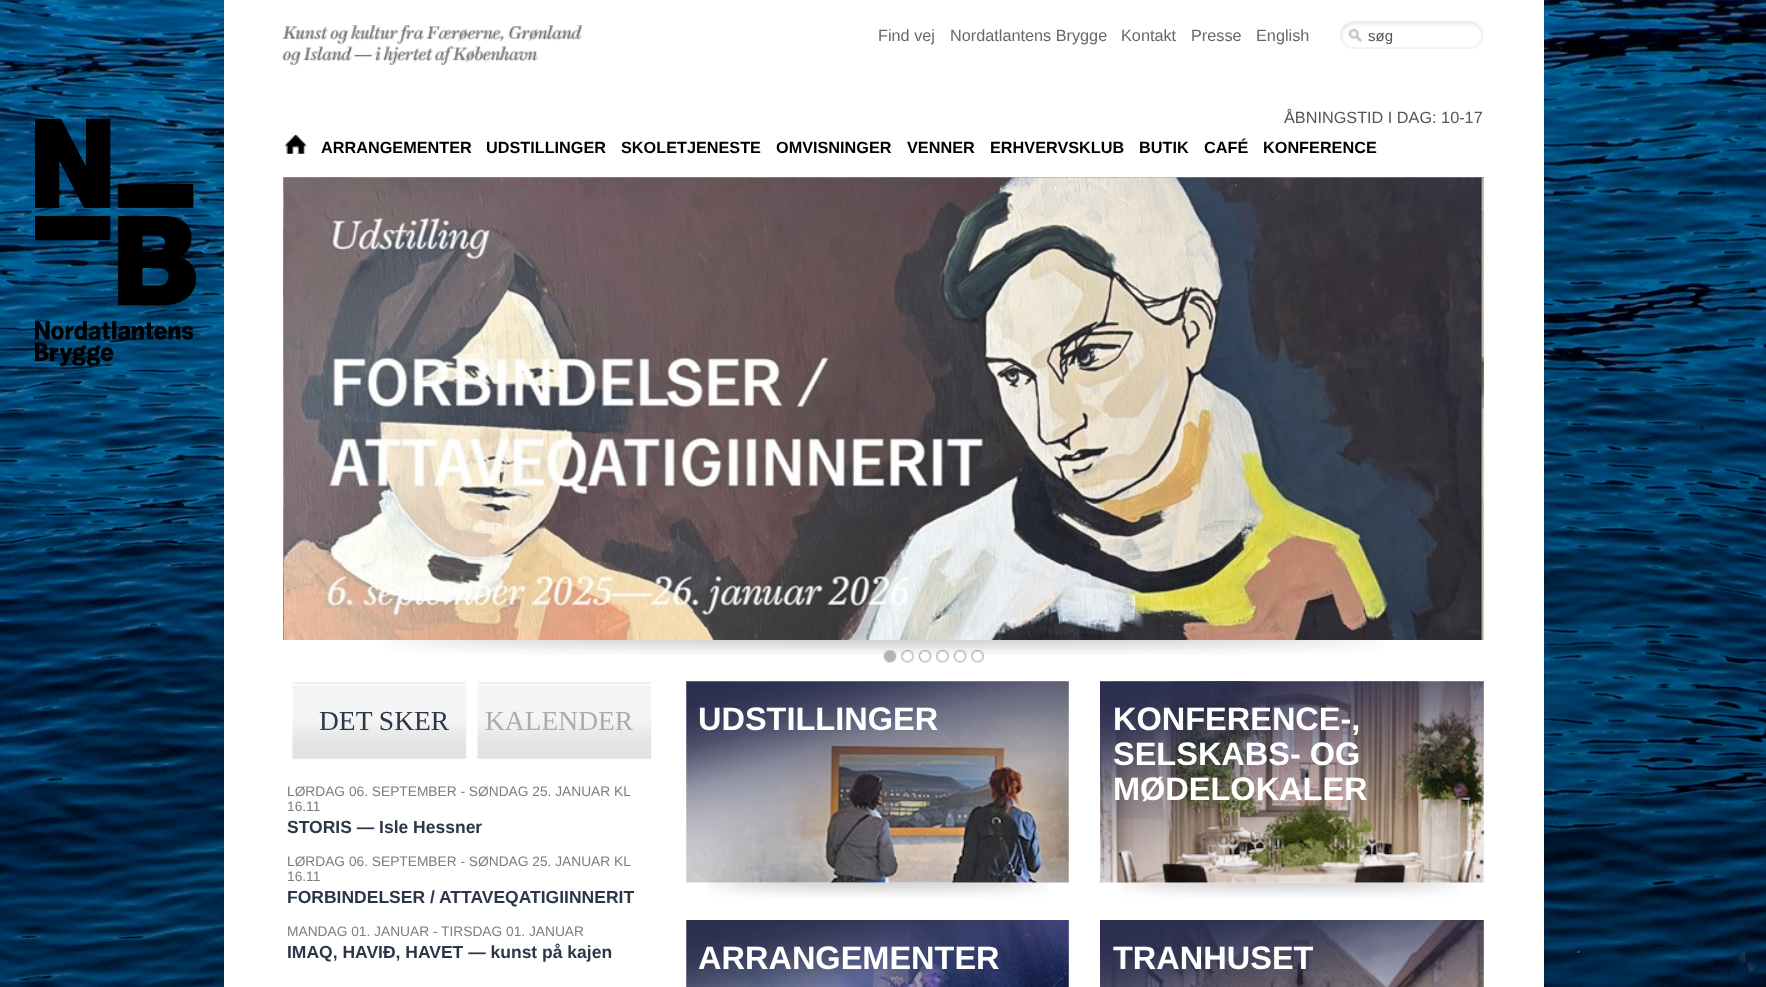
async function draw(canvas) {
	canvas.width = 1766;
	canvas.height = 987;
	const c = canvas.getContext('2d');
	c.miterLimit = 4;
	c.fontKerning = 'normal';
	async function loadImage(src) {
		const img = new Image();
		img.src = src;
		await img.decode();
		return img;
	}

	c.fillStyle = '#fff';
	c.fillRect(0, 0, 1766, 987);
	c.drawImage(await loadImage('img1.png'), 0, 0, 1766, 987);
	c.fillRect(224, 0, 1320, 987);
	c.drawImage(await loadImage('img2.png'), 282, 25, 301, 40);
	c.font = '16.25px Liberation Sans';
	c.fillStyle = '#676767';
	for (const [text, x, y] of [
		['Find vej', 878, 41],
		['Nordatlantens Brygge', 950, 41],
		['Kontakt', 1121, 41],
		['Presse', 1191, 41],
		['English', 1256, 41],
	]) {
		c.fillText(text, x, y);
	}
	c.drawImage(await loadImage('img3.png'), 1340, 21, 144, 28);
	c.font = '15px Liberation Sans';
	c.fillStyle = '#555';
	c.fillText('søg', 1368, 41);
	c.font = '16.25px Liberation Sans';
	c.fillText('ÅBNINGSTID I DAG: 10-17', 1284, 123);
	c.drawImage(await loadImage('img4.png'), 285, 134, 22, 20);
	c.font = 'bold 16.25px Liberation Sans';
	c.fillStyle = '#000';
	for (const [text, x, y] of [
		['ARRANGEMENTER', 321, 153],
		['UDSTILLINGER', 486, 153],
		['SKOLETJENESTE', 621, 153],
		['OMVISNINGER', 776, 153],
		['VENNER', 907, 153],
		['ERHVERVSKLUB', 990, 153],
		['BUTIK', 1139, 153],
		['CAFÉ', 1204, 153],
		['KONFERENCE', 1263, 153],
	]) {
		c.fillText(text, x, y);
	}
	c.drawImage(await loadImage('img5.png'), 35, 118, 162, 249);
	c.drawImage(await loadImage('img6.png'), 383, 640, 1001, 15);
	c.drawImage(await loadImage('img7.png'), 283, 177, 1201, 463);
	c.drawImage(await loadImage('img8.png'), 283, 177, 1201, 463);
	c.drawImage(await loadImage('img9.png'), 283, 177, 1201, 463);
	c.drawImage(await loadImage('img10.png'), 283, 177, 1201, 463);
	c.drawImage(await loadImage('img11.png'), 283, 177, 1201, 463);
	c.drawImage(await loadImage('img12.png'), 283, 177, 1201, 463);
	c.drawImage(await loadImage('img13.png'), 883, 650, 14, 13);
	c.drawImage(await loadImage('img14.png'), 901, 650, 13, 13);
	c.drawImage(await loadImage('img15.png'), 918, 650, 14, 13);
	c.drawImage(await loadImage('img14.png'), 936, 650, 13, 13);
	c.drawImage(await loadImage('img15.png'), 953, 650, 14, 13);
	c.drawImage(await loadImage('img16.png'), 971, 650, 13, 13);
	c.drawImage(await loadImage('img17.png'), 292, 682, 360, 77);
	c.font = '27.5px Liberation Serif';
	c.fillStyle = '#2b3748';
	c.fillText('DET SKER', 319, 730);
	c.fillStyle = '#acacac';
	c.fillText('KALENDER', 485, 730);
	c.font = '13.75px Liberation Sans';
	c.fillStyle = '#7d7d7d';
	c.fillText('LØRDAG 06. SEPTEMBER - SØNDAG 25. JANUAR KL', 287, 796);
	c.fillText('16.11', 287, 811);
	c.font = 'bold 17.5px Liberation Sans';
	c.fillStyle = '#2b3748';
	c.fillText('STORIS — Isle Hessner', 287, 833);
	c.font = '13.75px Liberation Sans';
	c.fillStyle = '#7d7d7d';
	c.fillText('LØRDAG 06. SEPTEMBER - SØNDAG 25. JANUAR KL', 287, 866);
	c.fillText('16.11', 287, 881);
	c.font = 'bold 17.5px Liberation Sans';
	c.fillStyle = '#2b3748';
	c.fillText('FORBINDELSER / ATTAVEQATIGIINNERIT', 287, 903);
	c.font = '13.75px Liberation Sans';
	c.fillStyle = '#7d7d7d';
	c.fillText('MANDAG 01. JANUAR - TIRSDAG 01. JANUAR', 287, 936);
	c.font = 'bold 17.5px Liberation Sans';
	c.fillStyle = '#2b3748';
	c.fillText('IMAQ, HAVIÐ, HAVET — kunst på kajen', 287, 958);
	c.drawImage(await loadImage('img18.png'), 707, 882, 341, 16);
	c.drawImage(await loadImage('img19.png'), 686, 681, 383, 202);
	c.drawImage(await loadImage('img20.png'), 686, 681, 383, 196);
	c.font = 'bold 32.5px Liberation Sans';
	c.fillStyle = '#fff';
	c.fillText('UDSTILLINGER', 698, 730);
	c.drawImage(await loadImage('img21.png'), 1121, 882, 341, 16);
	c.drawImage(await loadImage('img22.png'), 1100, 681, 384, 202);
	c.drawImage(await loadImage('img23.png'), 1100, 681, 384, 197);
	for (const [text, x, y] of [
		['KONFERENCE-,', 1113, 730],
		['SELSKABS- OG', 1113, 765],
		['MØDELOKALER', 1113, 800],
	]) {
		c.fillText(text, x, y);
	}
	c.drawImage(await loadImage('img24.png'), 686, 920, 383, 67);
	c.drawImage(await loadImage('img25.png'), 686, 920, 383, 67);
	c.fillText('ARRANGEMENTER', 698, 969);
	c.drawImage(await loadImage('img26.png'), 1100, 920, 384, 67);
	c.drawImage(await loadImage('img27.png'), 1100, 920, 384, 67);
	c.fillText('TRANHUSET', 1113, 969);
	c.drawImage(await loadImage('img28.png'), 1737, 891, 19, 81);
}

draw(document.querySelector('canvas'));
